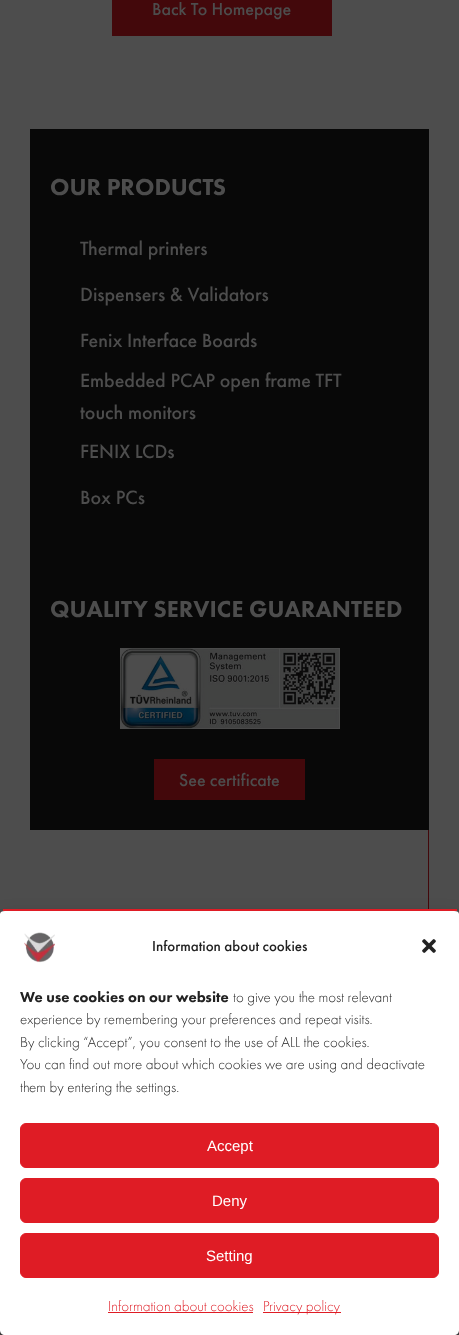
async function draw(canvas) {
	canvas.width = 459;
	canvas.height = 1335;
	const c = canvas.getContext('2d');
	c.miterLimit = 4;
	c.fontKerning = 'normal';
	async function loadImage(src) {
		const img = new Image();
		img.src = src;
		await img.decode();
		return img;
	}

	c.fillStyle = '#4d4d4d';
	c.fillRect(0, 0, 459, 1335);
	c.fillStyle = '#43080b';
	c.fillRect(112, 0, 220, 36);
	c.font = '500 18px Futura PT';
	c.fillStyle = '#4d4d4d';
	c.fillText('Back To Homepage', 152, 15);
	c.fillStyle = '#080808';
	c.fillRect(30, 129, 399, 701);
	c.font = '900 24px Futura PT';
	c.fillStyle = '#4d4d4d';
	c.fillText('OUR PRODUCTS', 50, 195);
	c.font = '500 20px Futura PT';
	for (const [text, x, y] of [
		['Thermal printers', 80, 255],
		['Dispensers & Validators', 80, 301],
		['Fenix Interface Boards', 80, 347],
		['Embedded PCAP open frame TFT', 80, 387],
		['touch monitors', 80, 419],
		['FENIX LCDs', 80, 458],
		['Box PCs', 80, 504],
	]) {
		c.fillText(text, x, y);
	}
	c.font = '900 24px Futura PT';
	c.fillText('QUALITY SERVICE GUARANTEED', 50, 617);
	c.drawImage(await loadImage('img1.png'), 120, 648, 220, 81);
	c.fillStyle = '#43080b';
	c.fillRect(154, 759, 151, 41);
	c.font = '500 18px Futura PT';
	c.fillStyle = '#4d4d4d';
	c.fillText('See certificate', 179, 786);
	c.fillStyle = '#43080b';
	c.fillRect(428, 830, 1, 79);
	c.fillStyle = '#0000003b';
	c.filter = 'blur(3px)';
	c.beginPath();
	c.roundRect(0, 915, 459, 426, 5);
	c.fill();
	c.filter = 'none';
	c.fillStyle = '#00000030';
	c.filter = 'blur(10px)';
	c.beginPath();
	c.roundRect(0, 919, 459, 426, 5);
	c.fill();
	c.filter = 'none';
	c.fillStyle = '#fff';
	c.beginPath();
	c.moveTo(5, 911);
	c.lineTo(454, 911);
	c.bezierCurveTo(457, 911, 459, 912, 459, 914);
	c.lineTo(459, 1330);
	c.bezierCurveTo(459, 1333, 457, 1335, 454, 1335);
	c.lineTo(5, 1335);
	c.bezierCurveTo(2, 1335, 0, 1333, 0, 1330);
	c.lineTo(0, 914);
	c.bezierCurveTo(0, 912, 2, 911, 5, 911);
	c.closePath();
	c.fill();
	c.fillStyle = '#df1c25';
	c.fillRect(3, 909, 454, 2);
	c.drawImage(await loadImage('img2.png'), 24, 932, 31, 31);
	c.font = '500 15px Futura PT';
	c.fillStyle = '#222';
	c.fillText('Information about cookies', 152, 951);
	c.drawImage(await loadImage('img3.png'), 422, 939, 14, 14);
	c.font = '900 15px Futura PT';
	c.fillText('We use cookies on our website', 20, 1002);
	c.font = '300 15px Futura PT';
	for (const [text, x, y] of [
		['to give you the most relevant', 233, 1002],
		['experience by remembering your preferences and repeat visits.', 20, 1024],
		['By clicking “Accept”, you consent to the use of ALL the cookies.', 20, 1047],
		['You can find out more about which cookies we are using and deactivate', 20, 1069],
		['them by entering the settings.', 20, 1092],
	]) {
		c.fillText(text, x, y);
	}
	c.fillStyle = '#df1c25';
	c.beginPath();
	c.roundRect(20.5, 1123.5, 418, 44, 5.5);
	c.fill();
	c.strokeStyle = '#df1c25';
	c.stroke();
	c.font = '15px Liberation Sans';
	c.fillStyle = '#fff';
	c.fillText('Accept', 207, 1151);
	c.fillStyle = '#df1c25';
	c.beginPath();
	c.roundRect(20.5, 1178.5, 418, 44, 5.5);
	c.fill();
	c.stroke();
	c.fillStyle = '#fff';
	c.fillText('Deny', 212, 1206);
	c.fillStyle = '#df1c25';
	c.beginPath();
	c.roundRect(20.5, 1233.5, 418, 44, 5.5);
	c.fill();
	c.stroke();
	c.fillStyle = '#fff';
	c.fillText('Setting', 206, 1261);
	c.font = '300 15px Futura PT';
	c.fillStyle = '#df1c25';
	c.fillText('Information about cookies', 108, 1311);
	c.fillRect(108, 1312, 145, 1);
	c.fillRect(263, 1312, 78, 1);
	c.fillText('Privacy policy', 263, 1311);
}

draw(document.querySelector('canvas'));
